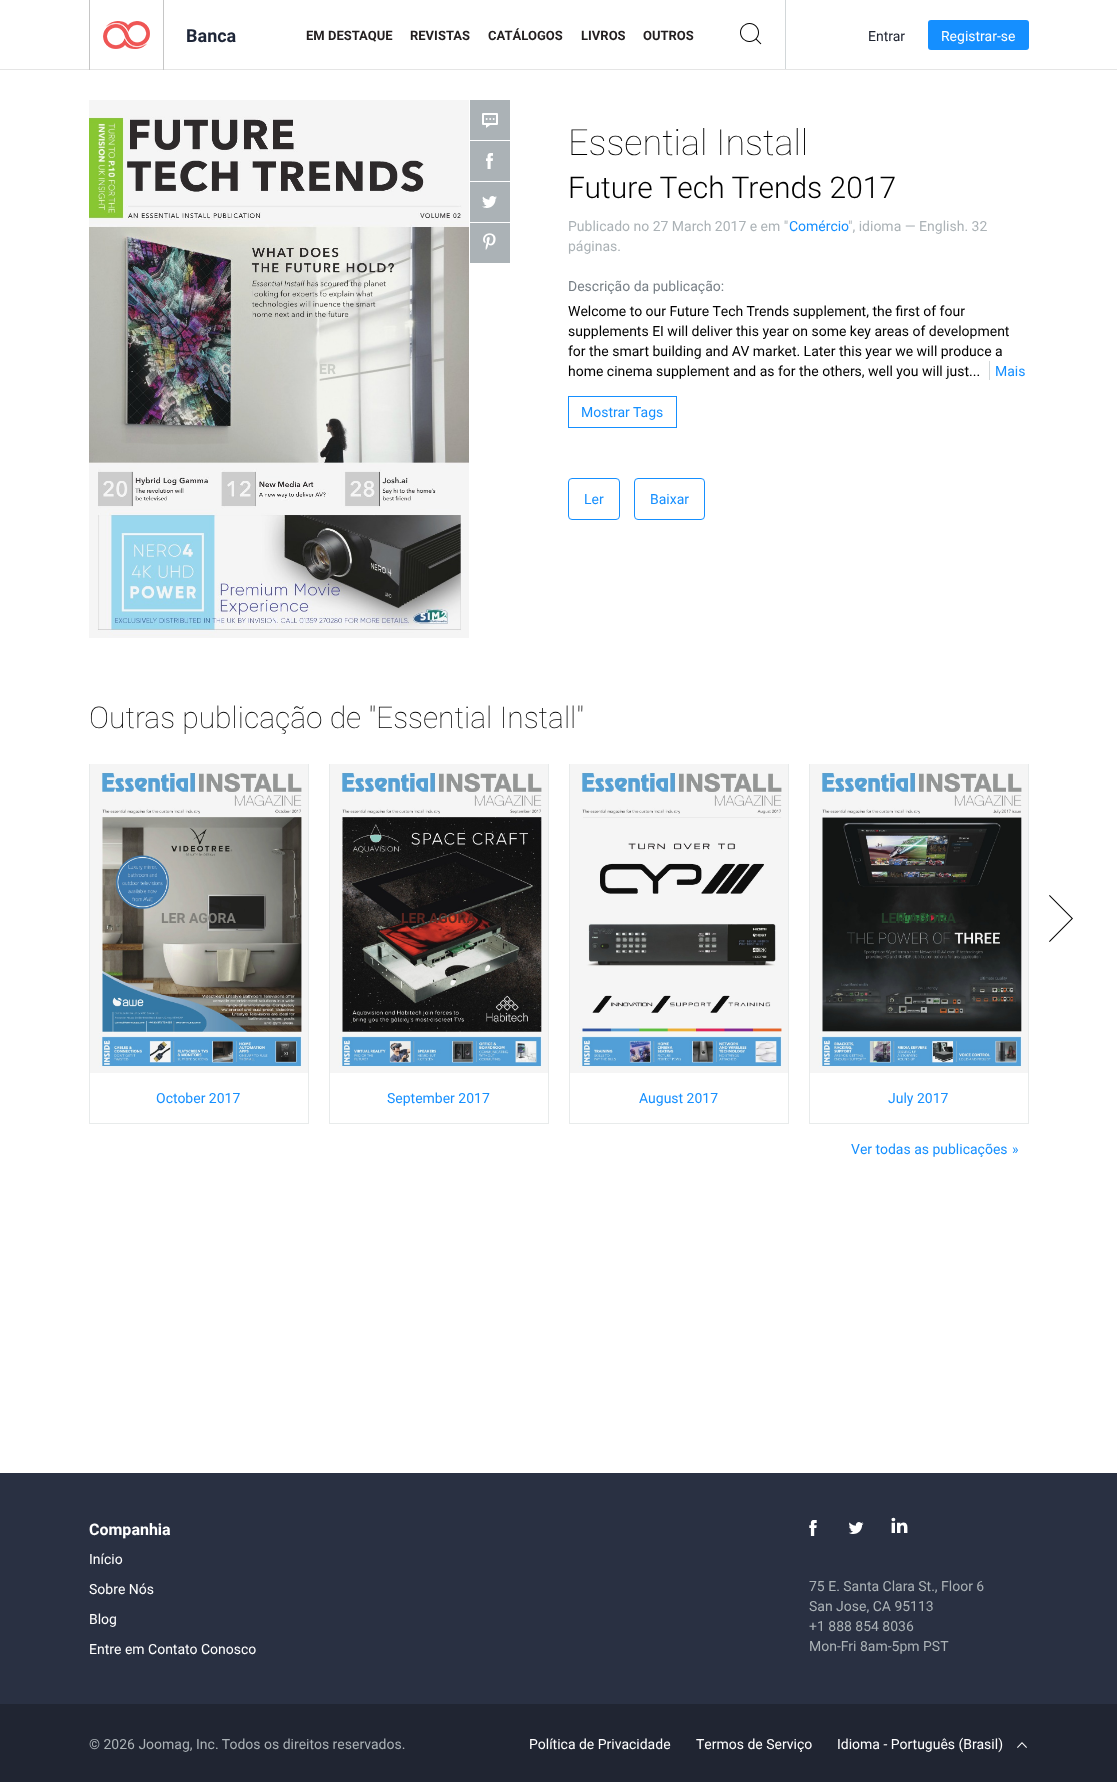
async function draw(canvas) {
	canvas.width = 1117;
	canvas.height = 1782;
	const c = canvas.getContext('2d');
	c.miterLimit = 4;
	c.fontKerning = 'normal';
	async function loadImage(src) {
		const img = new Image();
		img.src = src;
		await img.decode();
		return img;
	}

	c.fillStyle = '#fff';
	c.fillRect(0, 0, 1117, 1782);
	for (const [x, y, w, h, color] of [
		[0, 69, 1117, 1, '#e5e5e5'],
		[163, 0, 1, 70, '#c6c6c6'],
		[89, 0, 1, 70, '#c6c6c6'],
	]) {
		c.fillStyle = color;
		c.fillRect(x, y, w, h);
	}
	c.drawImage(await loadImage('img1.png'), 103, 21, 47, 28);
	c.font = 'bold 18px Roboto';
	c.fillStyle = '#1e2638';
	c.fillText('Banca', 186, 42);
	c.font = 'bold 13px Roboto';
	c.fillStyle = '#231f20';
	for (const [text, x, y] of [
		['EM DESTAQUE', 306, 40],
		['REVISTAS', 410, 40],
		['CATÁLOGOS', 488, 40],
		['LIVROS', 581, 40],
		['OUTROS', 643, 40],
	]) {
		c.fillText(text, x, y);
	}
	c.fillStyle = '#d2d7d9';
	c.fillRect(785, 0, 1, 69);
	c.drawImage(await loadImage('img2.png'), 740, 23, 22, 22);
	c.font = '14px Roboto';
	c.fillStyle = '#202532';
	c.fillText('Entrar', 868, 41);
	c.fillStyle = '#158fff';
	c.beginPath();
	c.roundRect(928, 20, 101, 30, 3);
	c.fill();
	c.fillStyle = '#fff';
	c.fillText('Registrar-se', 941, 41);
	c.fillStyle = '#abb2b6';
	c.fillRect(470, 100, 40, 40);
	c.drawImage(await loadImage('img3.png'), 482, 113, 16, 15);
	c.fillRect(470, 141, 40, 40);
	c.drawImage(await loadImage('img4.png'), 486, 153, 7, 16);
	c.fillRect(470, 182, 40, 40);
	c.drawImage(await loadImage('img5.png'), 482, 196, 15, 12);
	c.fillRect(470, 223, 40, 40);
	c.drawImage(await loadImage('img6.png'), 483, 233, 13, 17);
	c.drawImage(await loadImage('img7.png'), 89, 100, 380, 538);
	c.font = 'bold 14px Roboto';
	c.fillStyle = '#cacdc7';
	c.fillText('C', 221, 374);
	c.fillText('ER', 319, 374);
	c.font = '100 36px Roboto';
	c.fillStyle = '#000';
	c.fillText('Essential Install', 568, 155);
	c.font = '300 30px Roboto';
	c.fillText('Future Tech Trends 2017', 568, 198);
	c.font = '14px Roboto';
	c.fillStyle = '#abb2b6';
	c.fillText('Publicado no 27 March 2017 e em "', 568, 231);
	c.fillStyle = '#158fff';
	c.fillText('Comércio', 789, 231);
	c.fillStyle = '#abb2b6';
	c.fillText('", idioma — English. 32', 848, 231);
	c.fillText('páginas.', 568, 251);
	c.fillStyle = '#777f86';
	c.fillText('Descrição da publicação:', 568, 291);
	c.fillStyle = '#000';
	for (const [text, x, y] of [
		['Welcome to our Future Tech Trends supplement, the first of four', 568, 316],
		['supplements EI will deliver this year on some key areas of development', 568, 336],
		['for the smart building and AV market. Later this year we will produce a', 568, 356],
		['home cinema supplement and as for the others, well you will just...', 568, 376],
	]) {
		c.fillText(text, x, y);
	}
	c.fillStyle = '#d2d7d9';
	c.fillRect(989, 361, 1, 19);
	c.fillStyle = '#158fff';
	c.fillText('Mais', 995, 376);
	c.strokeStyle = '#158fff';
	c.strokeRect(568.5, 396.5, 108, 31);
	c.fillText('Mostrar Tags', 581, 417);
	c.beginPath();
	c.roundRect(568.5, 478.5, 51, 41, 3.5);
	c.stroke();
	c.fillText('Ler', 584, 504);
	c.beginPath();
	c.roundRect(634.5, 478.5, 70, 41, 3.5);
	c.stroke();
	c.fillText('Baixar', 650, 504);
	c.save();
	c.beginPath();
	c.rect(89, 698, 940, 36);
	c.clip();
	c.font = '100 30px Roboto';
	c.fillStyle = '#000';
	c.fillText('Outras publicação de "Essential Install"', 89, 728);
	c.restore();
	c.save();
	c.beginPath();
	c.rect(89, 764, 940, 360);
	c.clip();
	c.strokeStyle = '#e8ebeb';
	c.strokeRect(89.5, 763.5, 219, 360);
	c.restore();
	c.drawImage(await loadImage('img8.png'), 90, 764, 218, 309);
	c.font = 'bold 14px Roboto';
	c.fillStyle = '#81807b';
	c.fillText('LER AGORA', 161, 923);
	c.font = '14px Roboto';
	c.fillStyle = '#158fff';
	c.fillText('October 2017', 156, 1103);
	c.save();
	c.beginPath();
	c.rect(89, 764, 940, 360);
	c.clip();
	c.strokeStyle = '#e8ebeb';
	c.strokeRect(329.5, 763.5, 219, 360);
	c.restore();
	c.drawImage(await loadImage('img9.png'), 330, 764, 218, 309);
	c.font = 'bold 14px Roboto';
	c.fillStyle = '#5e2721';
	c.fillText('LER AGORA', 401, 923);
	c.font = '14px Roboto';
	c.fillStyle = '#158fff';
	c.fillText('September 2017', 387, 1103);
	c.save();
	c.beginPath();
	c.rect(89, 764, 940, 360);
	c.clip();
	c.strokeStyle = '#e8ebeb';
	c.strokeRect(569.5, 763.5, 219, 360);
	c.restore();
	c.drawImage(await loadImage('img10.png'), 570, 764, 218, 309);
	c.fillText('August 2017', 639, 1103);
	c.save();
	c.beginPath();
	c.rect(89, 764, 940, 360);
	c.clip();
	c.strokeStyle = '#e8ebeb';
	c.strokeRect(809.5, 763.5, 219, 360);
	c.restore();
	c.drawImage(await loadImage('img11.png'), 810, 764, 218, 309);
	c.font = 'bold 14px Roboto';
	c.fillStyle = '#263f2b';
	c.fillText('LER AGORA', 881, 923);
	c.font = '14px Roboto';
	c.fillStyle = '#158fff';
	c.fillText('July 2017', 888, 1103);
	c.drawImage(await loadImage('img12.png'), 1049, 895, 24, 47);
	c.fillText('Ver todas as publicações', 851, 1154);
	c.fillText('»', 1012, 1154);
	c.fillStyle = '#293042';
	c.fillRect(0, 1473, 1117, 231);
	c.font = 'bold 16px Roboto';
	c.fillStyle = '#fff';
	c.fillText('Companhia', 89, 1535);
	c.font = '14px Roboto';
	for (const [text, x, y] of [
		['Início', 89, 1564],
		['Sobre Nós', 89, 1594],
		['Blog', 89, 1624],
		['Entre em Contato Conosco', 89, 1654],
	]) {
		c.fillText(text, x, y);
	}
	c.drawImage(await loadImage('img13.png'), 809, 1520, 8, 16);
	c.drawImage(await loadImage('img14.png'), 848, 1522, 16, 12);
	c.drawImage(await loadImage('img15.png'), 891, 1517, 17, 16);
	c.fillStyle = '#abb2b6';
	for (const [text, x, y] of [
		['75 E. Santa Clara St., Floor 6', 809, 1591],
		['San Jose, CA 95113', 809, 1611],
		['+1 888 854 8036', 809, 1631],
		['Mon-Fri 8am-5pm PST', 809, 1651],
	]) {
		c.fillText(text, x, y);
	}
	c.fillStyle = '#202532';
	c.fillRect(0, 1704, 1117, 78);
	c.fillStyle = '#abb2b6';
	c.fillText('© 2026 Joomag, Inc. Todos os direitos reservados.', 89, 1749);
	c.fillStyle = '#fff';
	for (const [text, x, y] of [
		['Política de Privacidade', 529, 1749],
		['Termos de Serviço', 696, 1749],
		['Idioma - Português (Brasil)', 837, 1749],
	]) {
		c.fillText(text, x, y);
	}
	c.drawImage(await loadImage('img16.png'), 1017, 1742, 10, 6);
}

draw(document.querySelector('canvas'));
